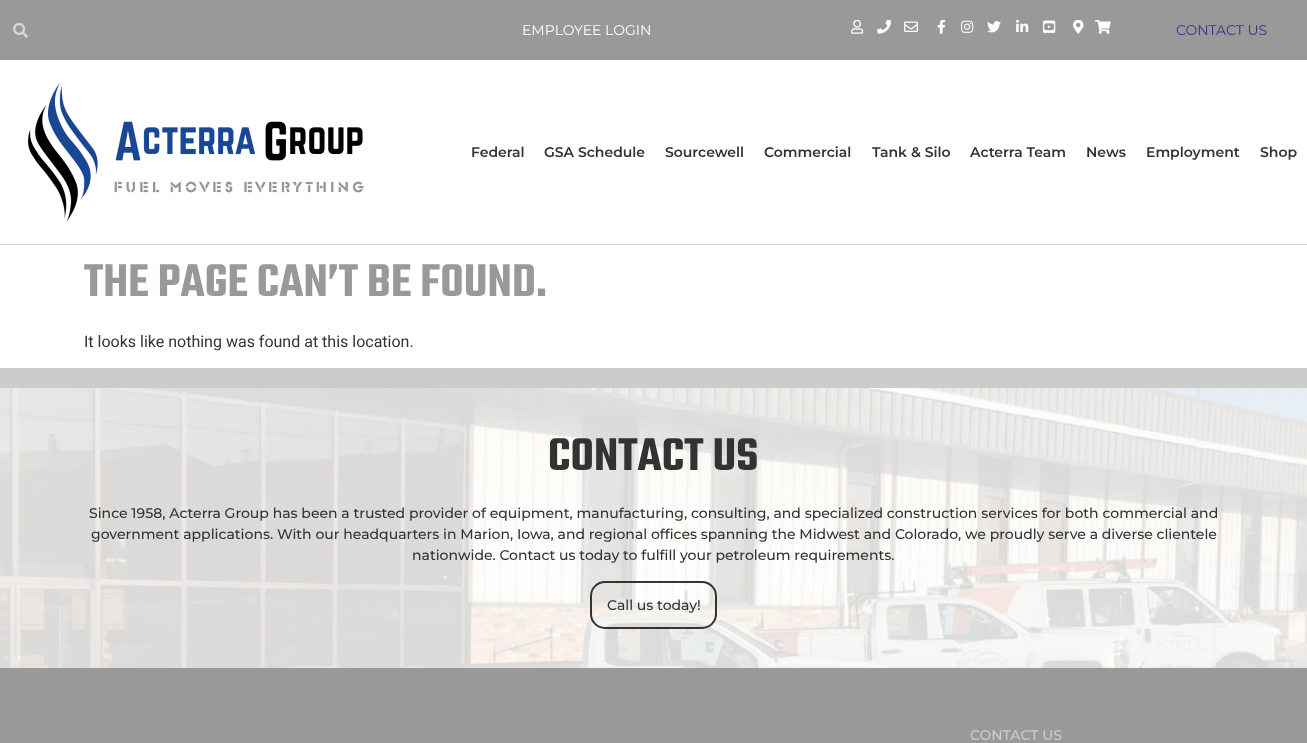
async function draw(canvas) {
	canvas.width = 1307;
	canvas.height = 743;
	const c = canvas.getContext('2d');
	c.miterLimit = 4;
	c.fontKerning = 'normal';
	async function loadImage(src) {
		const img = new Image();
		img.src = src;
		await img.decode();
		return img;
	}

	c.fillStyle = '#fff';
	c.fillRect(0, 0, 1307, 743);
	c.fillStyle = '#999';
	c.fillRect(0, 0, 1307, 60);
	c.drawImage(await loadImage('img1.png'), 13, 22, 15, 16);
	c.font = '14px Montserrat';
	c.fillStyle = '#fff';
	c.fillText('EMPLOYEE LOGIN', 522, 35);
	c.drawImage(await loadImage('img2.png'), 851, 20, 13, 14);
	c.drawImage(await loadImage('img3.png'), 877, 20, 14, 14);
	c.drawImage(await loadImage('img4.png'), 904, 21, 14, 11);
	c.drawImage(await loadImage('img5.png'), 937, 20, 9, 14);
	c.drawImage(await loadImage('img6.png'), 961, 20, 13, 13);
	c.drawImage(await loadImage('img7.png'), 987, 21, 14, 12);
	c.drawImage(await loadImage('img8.png'), 1016, 20, 13, 12);
	c.drawImage(await loadImage('img9.png'), 1043, 20, 13, 13);
	c.drawImage(await loadImage('img10.png'), 1073, 20, 11, 14);
	c.drawImage(await loadImage('img11.png'), 1095, 20, 16, 14);
	c.fillStyle = '#339';
	c.fillText('CONTACT US', 1176, 35);
	c.fillStyle = '#d8d8d8';
	c.fillRect(0, 244, 1307, 1);
	c.drawImage(await loadImage('img12.png'), 27, 83, 337, 139);
	c.font = '600 14px Montserrat';
	c.fillStyle = '#333';
	for (const [text, x, y] of [
		['Federal', 471, 157],
		['GSA Schedule', 544, 157],
		['Sourcewell', 665, 157],
		['Commercial', 764, 157],
		['Tank & Silo', 872, 157],
		['Acterra Team', 970, 157],
		['News', 1086, 157],
		['Employment', 1146, 157],
		['Shop', 1260, 157],
	]) {
		c.fillText(text, x, y);
	}
	c.font = '600 50px Teko';
	c.fillStyle = '#999';
	c.fillText('THE PAGE CAN’T BE FOUND.', 84, 296);
	c.font = '16px Roboto';
	c.fillStyle = '#333';
	c.fillText('It looks like nothing was found at this location.', 84, 347);
	c.fillStyle = '#ccc';
	c.fillRect(0, 368, 1307, 300);
	c.drawImage(await loadImage('img13.png'), 0, 388, 1307, 280);
	c.font = '600 50px Teko';
	c.fillStyle = '#333';
	c.fillText('CONTACT US', 548, 470);
	c.font = '500 14px Montserrat';
	for (const [text, x, y] of [
		['Since 1958, Acterra Group has been a trusted provider of equipment, manufacturing, consulting, and specialized construction services for both commercial and', 89, 518],
		['government applications. With our headquarters in Marion, Iowa, and regional offices spanning the Midwest and Colorado, we proudly serve a diverse clientele', 91, 539],
		['nationwide. Contact us today to fulfill your petroleum requirements.', 412, 560],
	]) {
		c.fillText(text, x, y);
	}
	c.beginPath();
	c.roundRect(591, 582, 125, 46, 14);
	c.strokeStyle = '#333';
	c.lineWidth = 2;
	c.stroke();
	c.fillText('Call us today!', 607, 610);
	c.fillStyle = '#999';
	c.fillRect(0, 668, 1307, 75);
	c.fillStyle = '#ccc';
	c.fillText('CONTACT US', 970, 740);
}

draw(document.querySelector('canvas'));
